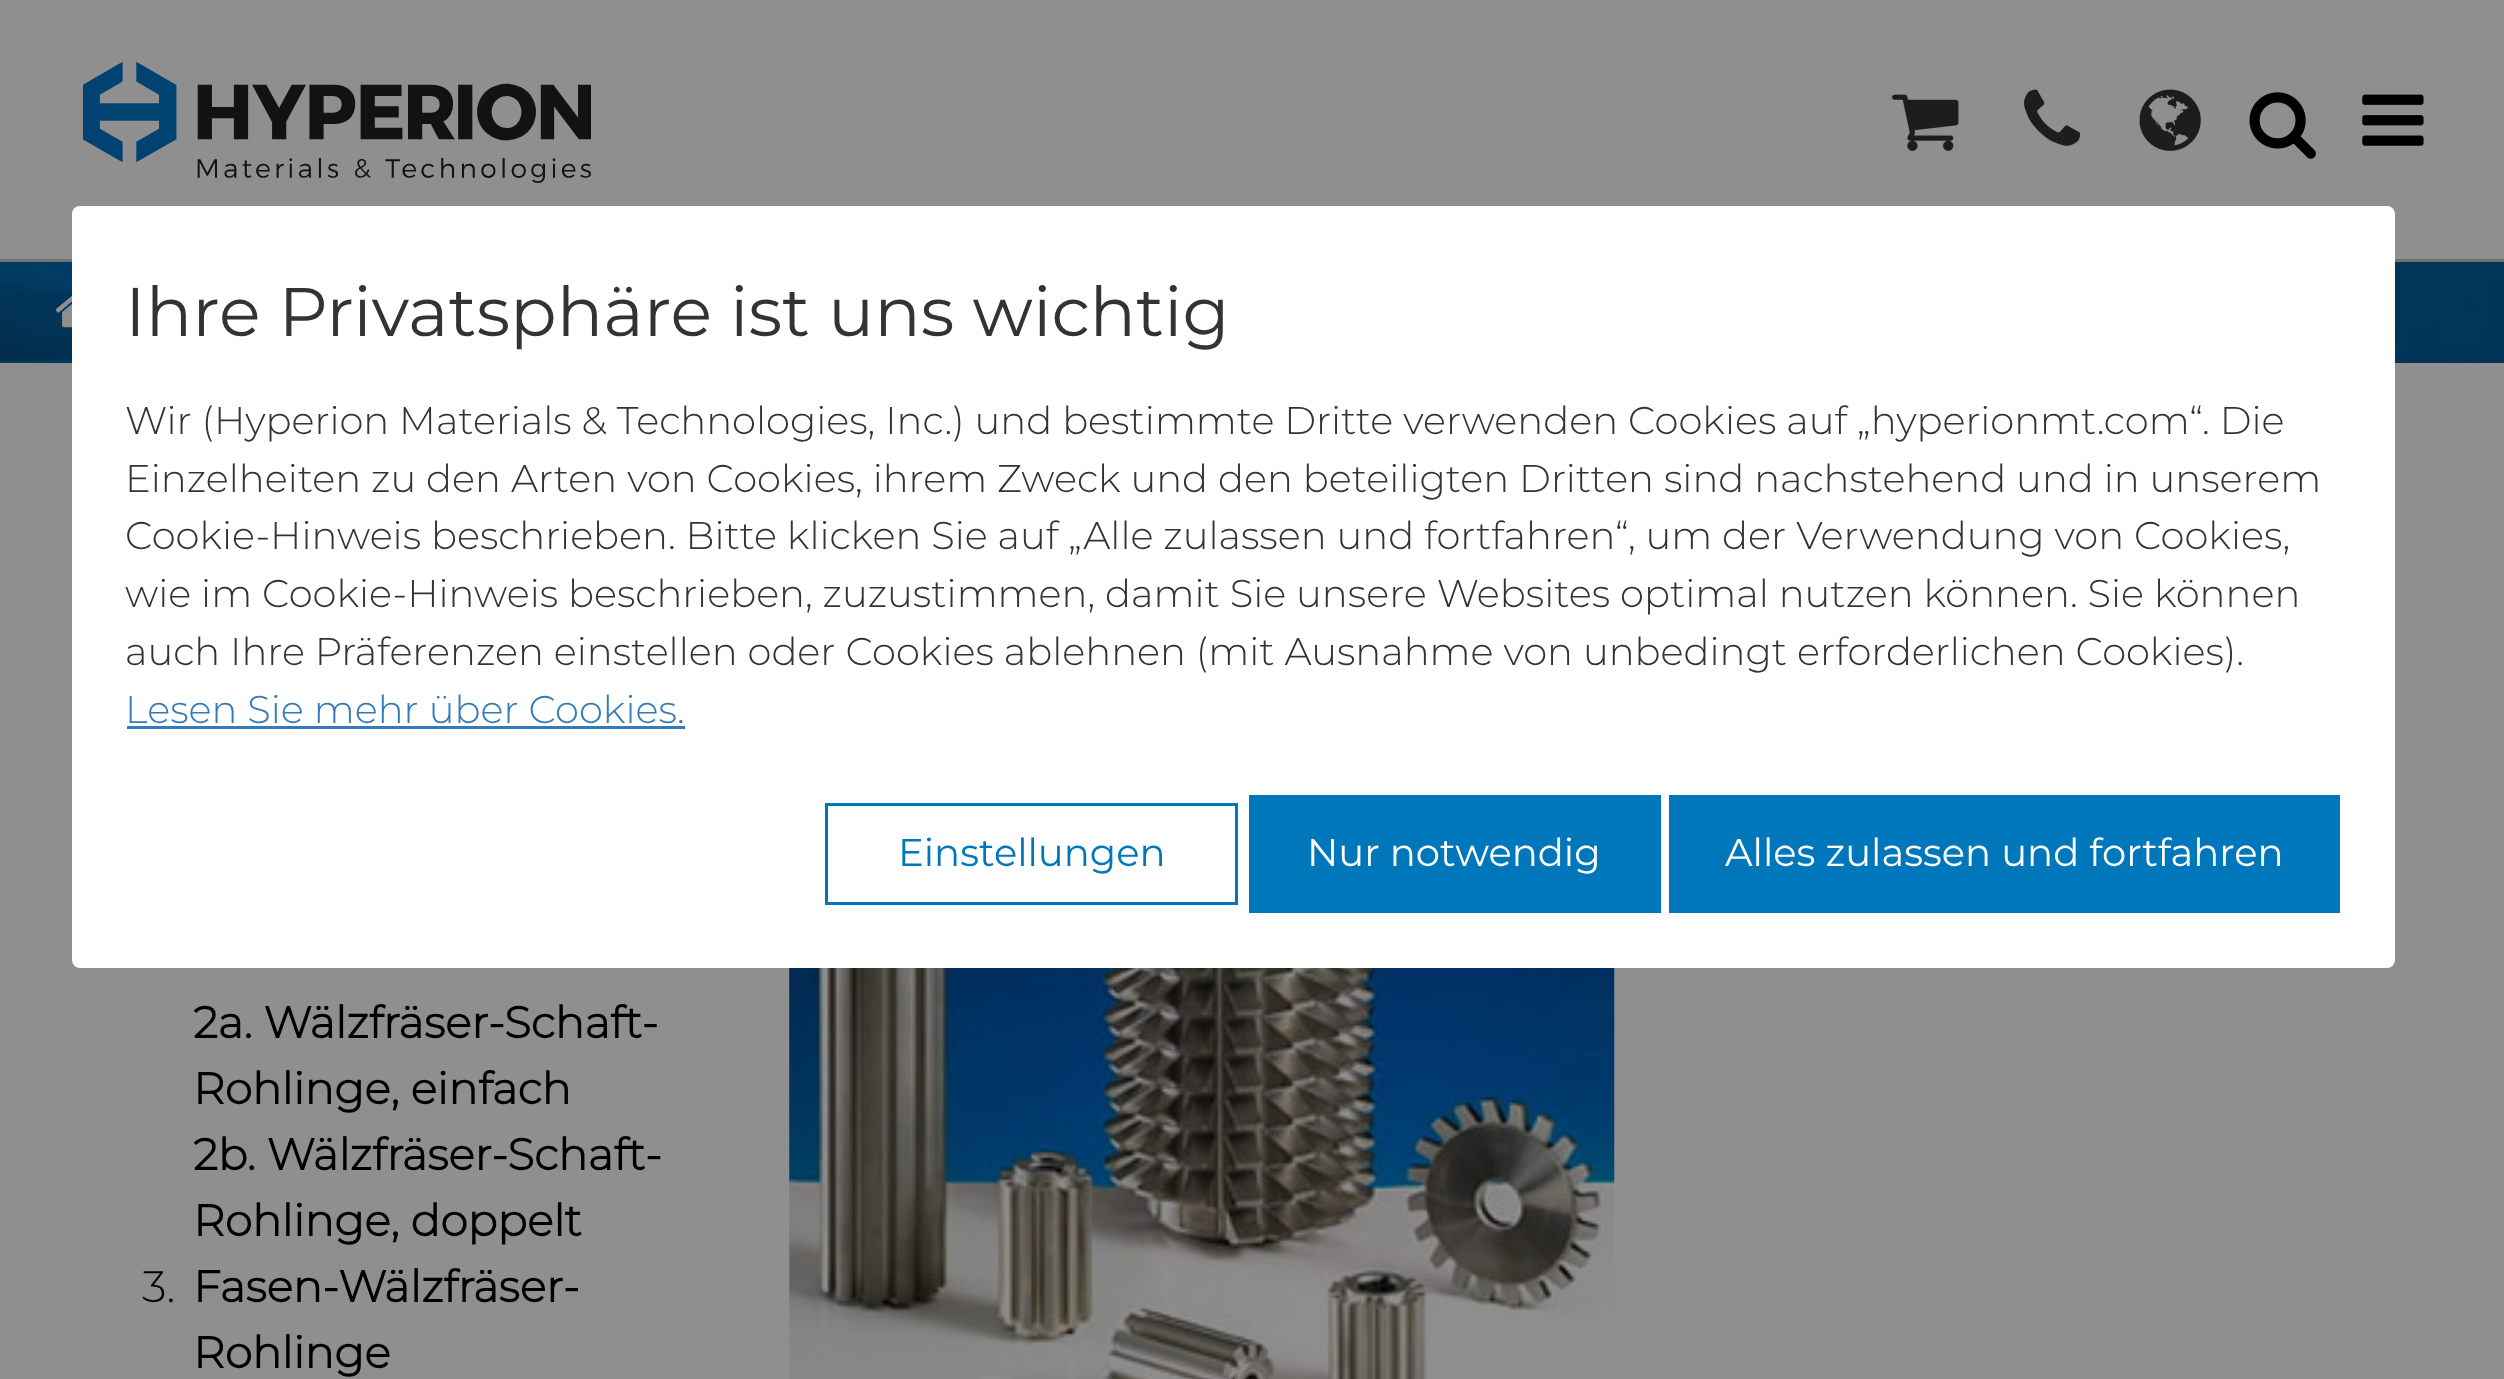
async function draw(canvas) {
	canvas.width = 2504;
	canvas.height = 1379;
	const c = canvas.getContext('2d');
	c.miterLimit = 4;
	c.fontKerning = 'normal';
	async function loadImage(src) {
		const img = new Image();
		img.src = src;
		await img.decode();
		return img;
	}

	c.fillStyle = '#8f8f8f';
	c.fillRect(0, 0, 2504, 1379);
	c.fillStyle = '#727272';
	c.fillRect(0, 259, 2504, 3);
	c.drawImage(await loadImage('img1.png'), 83, 61, 508, 122);
	c.drawImage(await loadImage('img2.png'), 1892, 94, 67, 57);
	c.drawImage(await loadImage('img3.png'), 2024, 89, 57, 57);
	c.drawImage(await loadImage('img4.png'), 2139, 89, 62, 62);
	c.drawImage(await loadImage('img5.png'), 2249, 92, 67, 67);
	c.drawImage(await loadImage('img6.png'), 2362, 94, 62, 52);
	c.drawImage(await loadImage('img7.png'), 0, 262, 2504, 101);
	c.drawImage(await loadImage('img8.png'), 55, 295, 17, 33);
	c.fillStyle = '#fff';
	c.beginPath();
	c.roundRect(72, 206, 2323, 762, 8);
	c.fill();
	c.font = '68.75px Montserrat';
	c.fillStyle = '#333';
	c.fillText('Ihre Privatsphäre ist uns wichtig', 125, 336);
	c.font = '300 38.5px Montserrat';
	for (const [text, x, y] of [
		['Wir (Hyperion Materials & Technologies, Inc.) und bestimmte Dritte verwenden Cookies auf „hyperionmt.com“. Die', 125, 434],
		['Einzelheiten zu den Arten von Cookies, ihrem Zweck und den beteiligten Dritten sind nachstehend und in unserem', 125, 492],
		['Cookie-Hinweis beschrieben. Bitte klicken Sie auf „Alle zulassen und fortfahren“, um der Verwendung von Cookies,', 125, 549],
		['wie im Cookie-Hinweis beschrieben, zuzustimmen, damit Sie unsere Websites optimal nutzen können. Sie können', 125, 607],
		['auch Ihre Präferenzen einstellen oder Cookies ablehnen (mit Ausnahme von unbedingt erforderlichen Cookies).', 125, 665],
	]) {
		c.fillText(text, x, y);
	}
	c.fillStyle = '#337ab7';
	c.fillText('Lesen Sie mehr über Cookies.', 125, 723);
	c.fillRect(127, 726, 558, 3);
	c.strokeStyle = '#0076bb';
	c.lineWidth = 3;
	c.strokeRect(826.5, 804.5, 410, 99);
	c.font = '38.5px Montserrat';
	c.fillStyle = '#0076bb';
	c.fillText('Einstellungen', 898, 866);
	c.fillRect(1249, 795, 412, 118);
	c.fillStyle = '#fff';
	c.fillText('Nur notwendig', 1307, 866);
	c.fillStyle = '#0076bb';
	c.fillRect(1669, 795, 671, 118);
	c.fillStyle = '#fff';
	c.fillText('Alles zulassen und fortfahren', 1725, 866);
	c.font = 'bold 44px Montserrat';
	c.fillStyle = '#000';
	for (const [text, x, y] of [
		['2a. Wälzfräser-Schaft-', 193, 1038],
		['Rohlinge, einfach', 193, 1104],
		['2b. Wälzfräser-Schaft-', 193, 1170],
		['Rohlinge, doppelt', 193, 1236],
	]) {
		c.fillText(text, x, y);
	}
	c.font = '300 44px Montserrat';
	c.fillText('3.', 142, 1302);
	c.font = 'bold 44px Montserrat';
	c.fillText('Fasen-Wälzfräser-', 193, 1302);
	c.fillText('Rohlinge', 193, 1368);
	c.drawImage(await loadImage('img9.png'), 789, 968, 826, 411);
}

draw(document.querySelector('canvas'));
